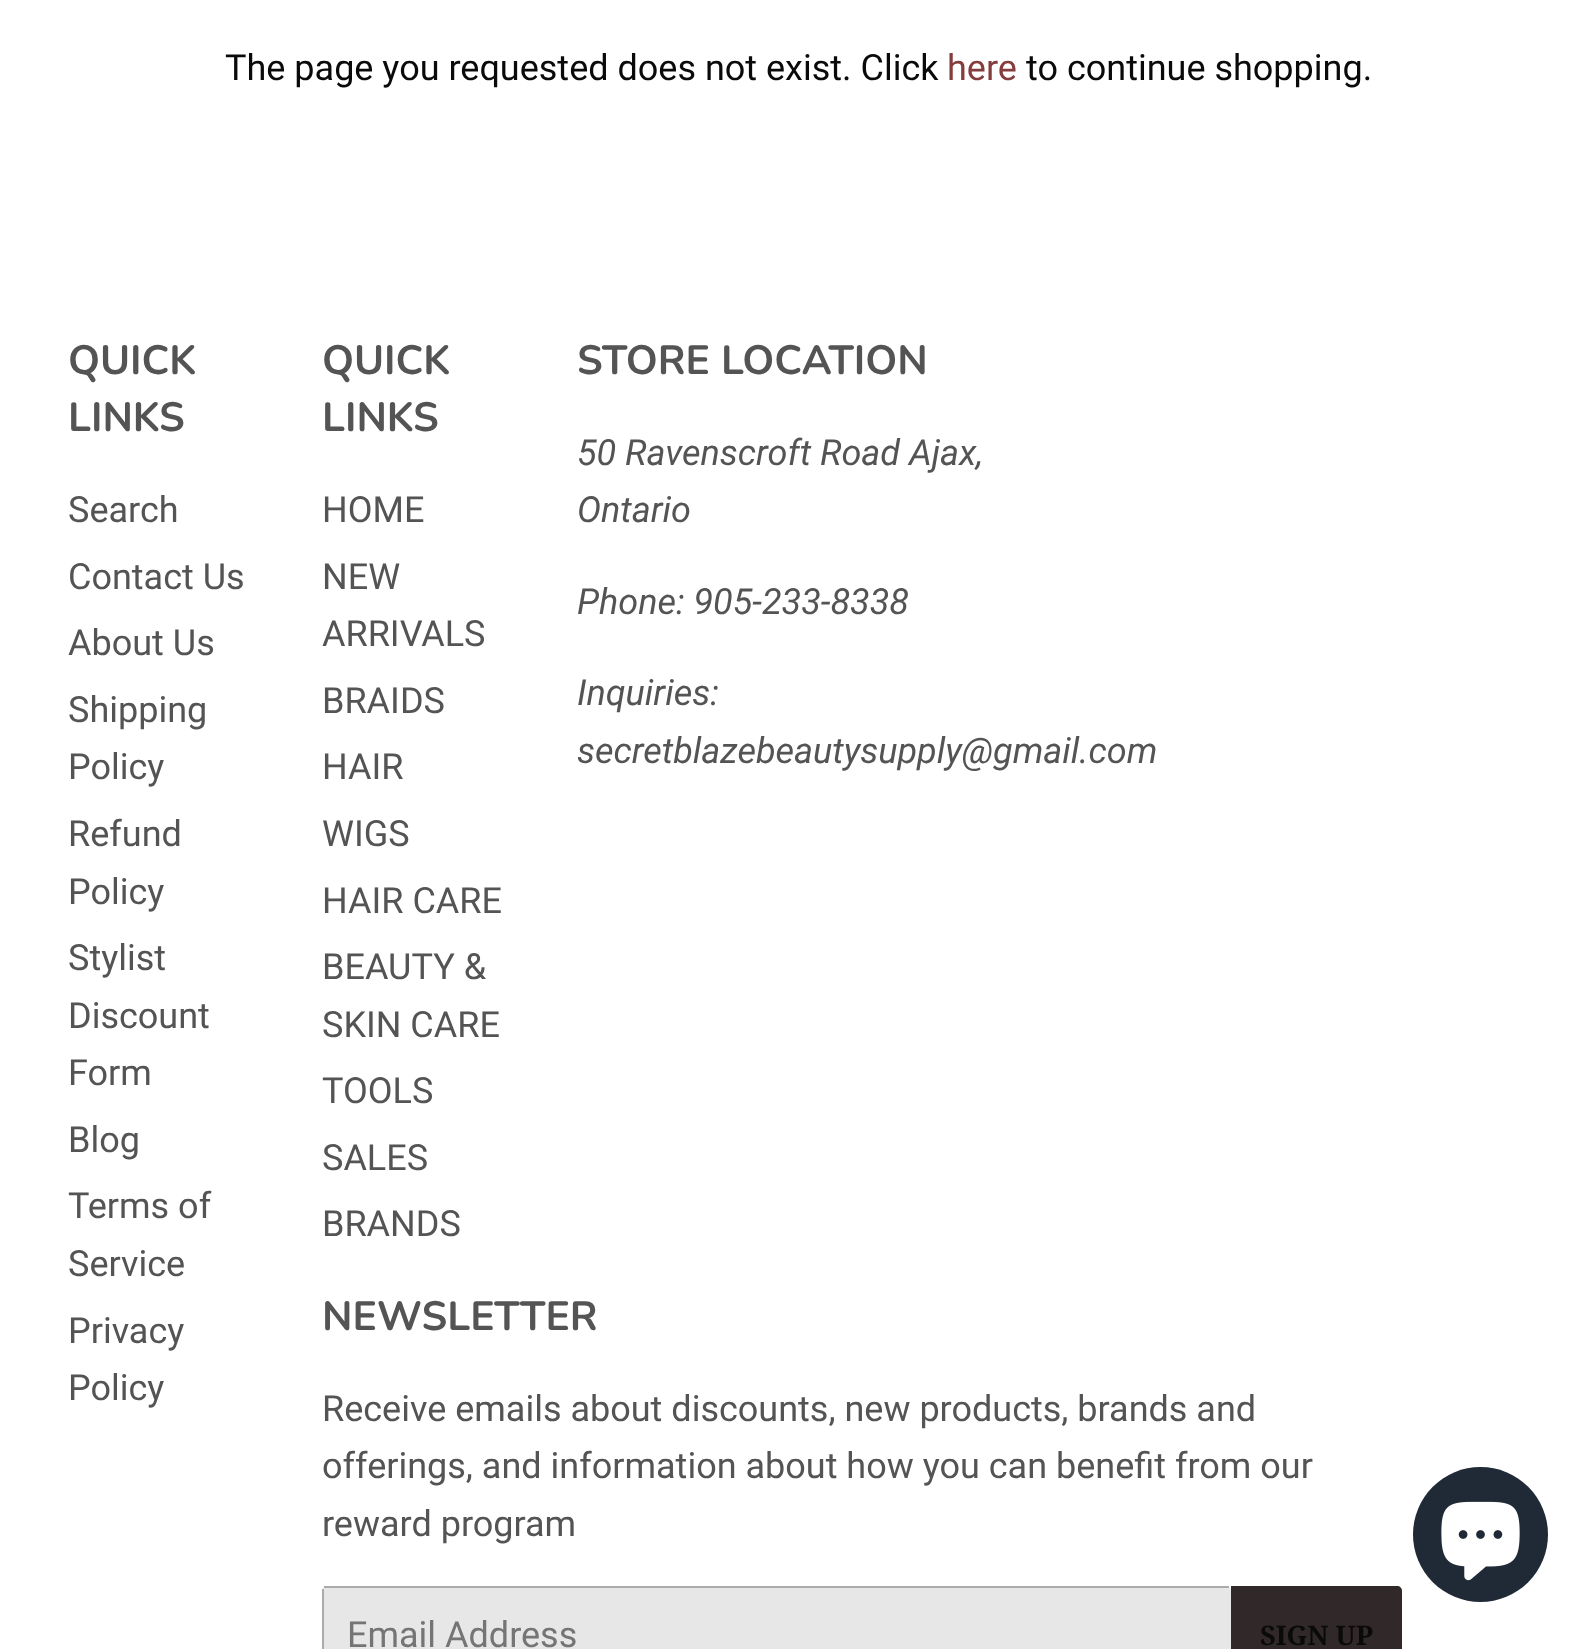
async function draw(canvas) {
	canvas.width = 1596;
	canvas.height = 1649;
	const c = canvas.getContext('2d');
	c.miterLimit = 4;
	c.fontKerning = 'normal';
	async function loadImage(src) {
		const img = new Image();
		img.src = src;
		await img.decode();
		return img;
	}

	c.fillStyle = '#fff';
	c.fillRect(0, 0, 1596, 1649);
	c.font = '36px Roboto';
	c.fillStyle = '#0b0a0a';
	c.fillText('The page you requested does not exist. Click', 225, 80);
	c.fillStyle = '#843c3c';
	c.fillText('here', 947, 80);
	c.fillStyle = '#0b0a0a';
	c.fillText('to continue shopping.', 1026, 80);
	c.font = 'bold 40.75px Nunito';
	c.fillStyle = '#545454';
	c.fillText('QUICK', 68, 374);
	c.fillText('LINKS', 68, 431);
	c.font = '36px Roboto';
	for (const [text, x, y] of [
		['Search', 68, 522],
		['Contact Us', 68, 589],
		['About Us', 68, 655],
		['Shipping', 68, 722],
		['Policy', 68, 779],
		['Refund', 68, 846],
		['Policy', 68, 904],
		['Stylist', 68, 970],
		['Discount', 68, 1028],
		['Form', 68, 1085],
		['Blog', 68, 1152],
		['Terms of', 68, 1218],
		['Service', 68, 1276],
		['Privacy', 68, 1343],
		['Policy', 68, 1400],
	]) {
		c.fillText(text, x, y);
	}
	c.font = 'bold 40.75px Nunito';
	c.fillText('QUICK', 322, 374);
	c.fillText('LINKS', 322, 431);
	c.font = '36px Roboto';
	for (const [text, x, y] of [
		['HOME', 322, 522],
		['NEW', 322, 589],
		['ARRIVALS', 322, 646],
		['BRAIDS', 322, 713],
		['HAIR', 322, 779],
		['WIGS', 322, 846],
		['HAIR CARE', 322, 913],
		['BEAUTY &', 322, 979],
		['SKIN CARE', 322, 1037],
		['TOOLS', 322, 1103],
		['SALES', 322, 1170],
		['BRANDS', 322, 1236],
	]) {
		c.fillText(text, x, y);
	}
	c.font = 'bold 40.75px Nunito';
	c.fillText('STORE LOCATION', 577, 374);
	c.font = 'italic 36px Roboto';
	for (const [text, x, y] of [
		['50 Ravenscroft Road Ajax,', 577, 465],
		['Ontario', 577, 522],
		['Phone: 905-233-8338', 577, 614],
		['Inquiries:', 577, 705],
		['secretblazebeautysupply@gmail.com', 577, 763],
	]) {
		c.fillText(text, x, y);
	}
	c.font = 'bold 40.75px Nunito';
	c.fillText('NEWSLETTER', 322, 1330);
	c.font = '36px Roboto';
	for (const [text, x, y] of [
		['Receive emails about discounts, new products, brands and', 322, 1421],
		['offerings, and information about how you can benefit from our', 322, 1478],
		['reward program', 322, 1536],
	]) {
		c.fillText(text, x, y);
	}
	c.fillStyle = '#e7e7e7';
	c.beginPath();
	c.roundRect(322, 1586, 909, 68, 5);
	c.fill();
	c.fillStyle = '#ababab';
	c.fillRect(324, 1586, 905, 2);
	c.fillRect(322, 1589, 2, 60);
	c.fillStyle = '#757575';
	c.fillText('Email Address', 347, 1647);
	c.fillStyle = '#312929';
	c.beginPath();
	c.moveTo(1231, 1586);
	c.lineTo(1397, 1586);
	c.bezierCurveTo(1400, 1586, 1402, 1588, 1402, 1591);
	c.lineTo(1402, 1649);
	c.bezierCurveTo(1402, 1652, 1400, 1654, 1397, 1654);
	c.lineTo(1231, 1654);
	c.closePath();
	c.fill();
	c.font = 'bold 27px Noto Serif';
	c.fillStyle = '#0b0a0a';
	c.fillText('SIGN UP', 1260, 1645);
	c.fillStyle = '#202a36';
	c.beginPath();
	c.arc(1480.5, 1534.5, 67.5, 0, 2 * Math.PI);
	c.fill();
	c.drawImage(await loadImage('img1.png'), 1441, 1501, 79, 80);
}

draw(document.querySelector('canvas'));
